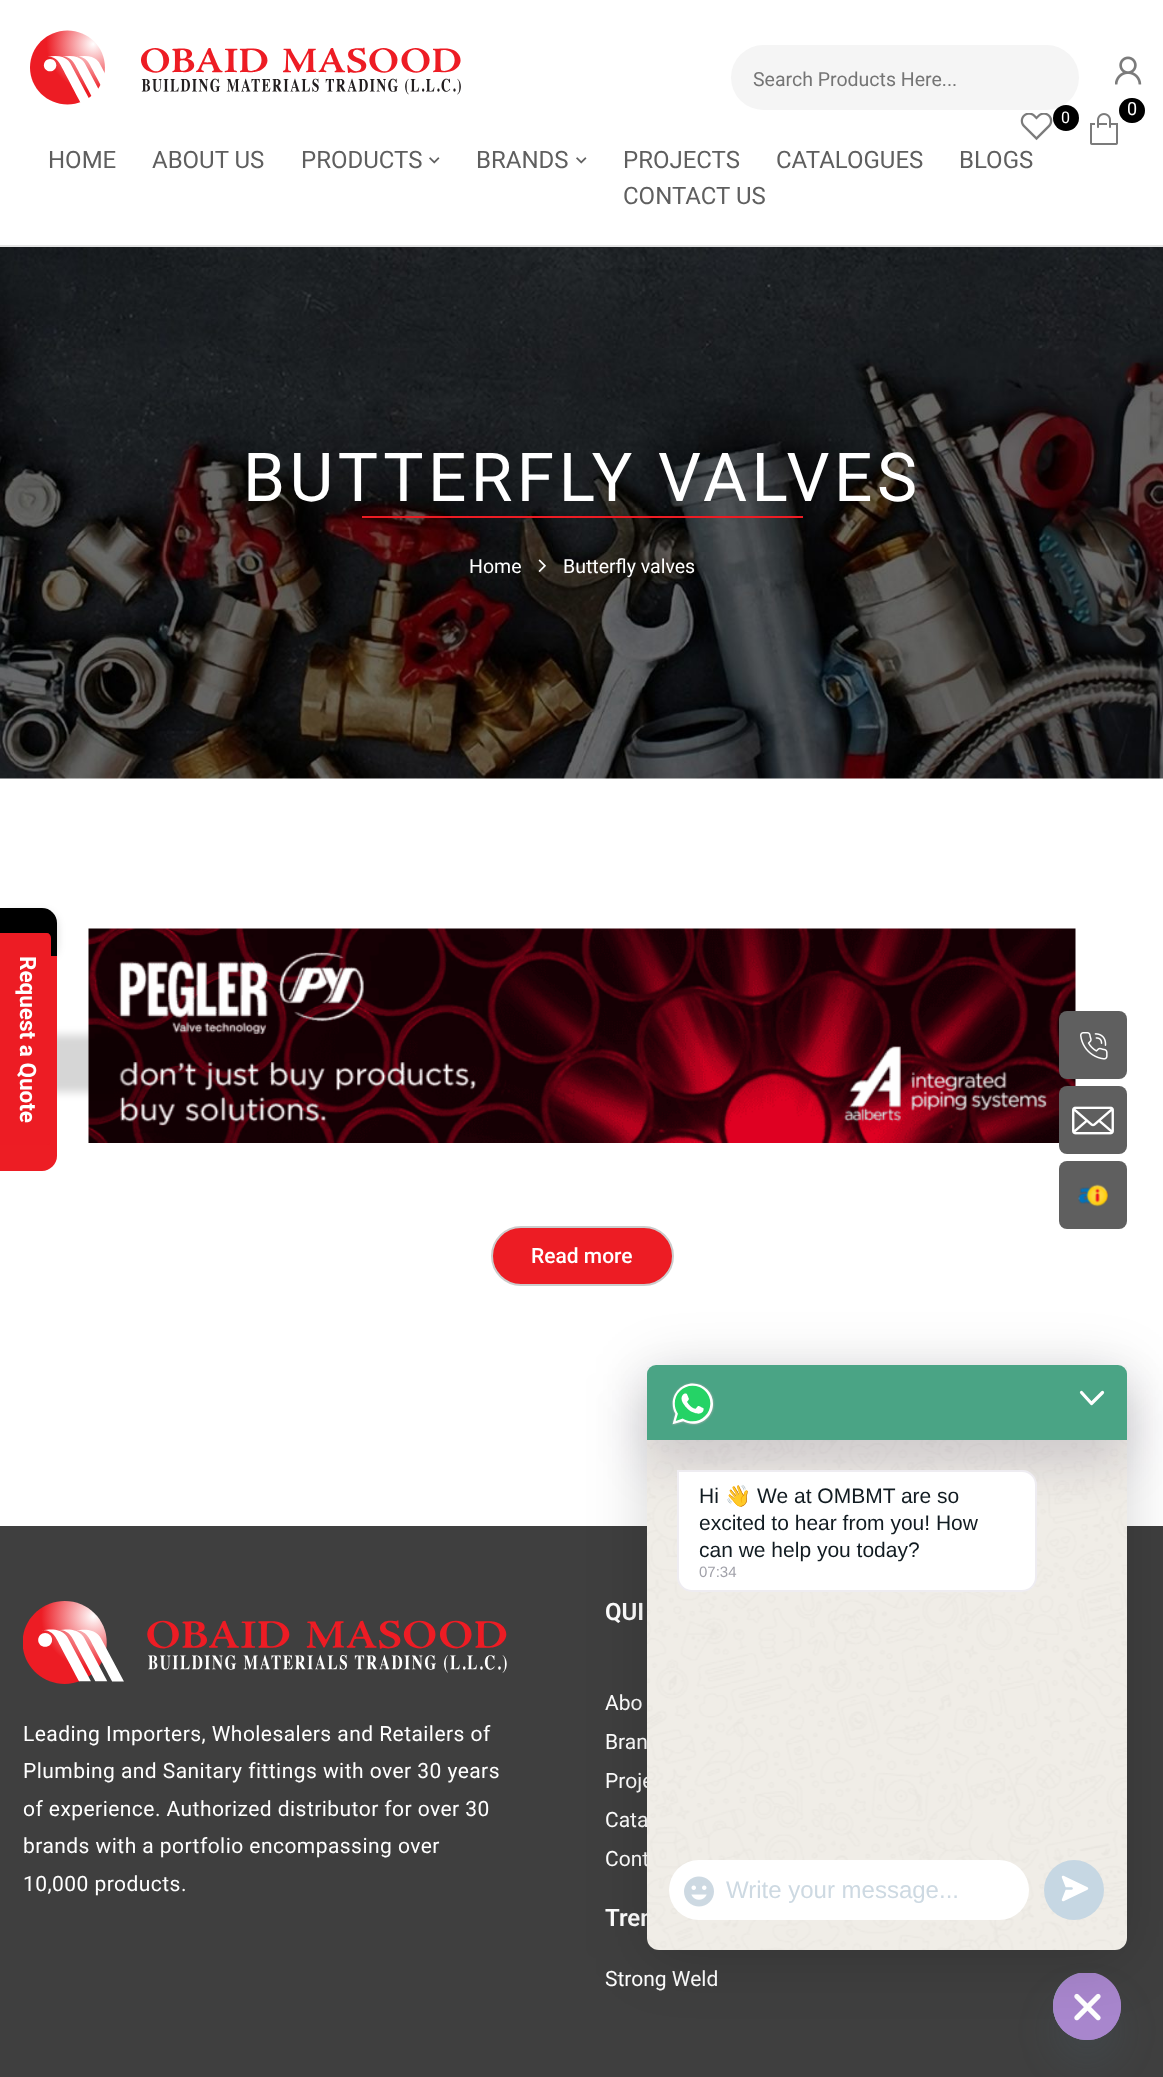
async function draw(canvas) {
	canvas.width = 1163;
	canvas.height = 2077;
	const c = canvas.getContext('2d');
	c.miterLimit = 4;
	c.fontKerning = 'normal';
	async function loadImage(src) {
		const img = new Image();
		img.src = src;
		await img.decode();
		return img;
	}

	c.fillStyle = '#fff';
	c.fillRect(0, 0, 1163, 2077);
	c.fillStyle = '#e5e5e5';
	c.fillRect(0, 245, 1163, 2);
	c.drawImage(await loadImage('img1.png'), 30, 30, 431, 75);
	c.fillStyle = '#f5f5f5';
	c.beginPath();
	c.roundRect(731, 45, 348, 65, 32.5);
	c.fill();
	c.font = '19.5px Roboto';
	c.fillStyle = '#757575';
	c.fillText('Search Products Here...', 753, 86);
	c.drawImage(await loadImage('img2.png'), 1115, 56, 27, 29);
	c.fillStyle = '#000';
	c.beginPath();
	c.roundRect(1119, 98, 26, 25, 12.5);
	c.fill();
	c.font = '18px Roboto';
	c.fillStyle = '#fff';
	c.fillText('0', 1127, 115);
	c.drawImage(await loadImage('img3.png'), 1090, 113, 28, 32);
	c.drawImage(await loadImage('img4.png'), 1020, 113, 33, 28);
	c.fillStyle = '#000';
	c.beginPath();
	c.arc(1066, 118, 13, 0, 2 * Math.PI);
	c.fill();
	c.font = '16px Roboto';
	c.fillStyle = '#fff';
	c.fillText('0', 1061, 123);
	c.font = '24px Roboto';
	c.fillStyle = '#5f5f5f';
	for (const [text, x, y] of [
		['HOME', 48, 168],
		['ABOUT US', 152, 168],
		['PRODUCTS', 301, 168],
	]) {
		c.fillText(text, x, y);
	}
	c.drawImage(await loadImage('img5.png'), 429, 157, 11, 7);
	c.fillText('BRANDS', 476, 168);
	c.drawImage(await loadImage('img5.png'), 576, 157, 11, 7);
	for (const [text, x, y] of [
		['PROJECTS', 623, 168],
		['CATALOGUES', 776, 168],
		['BLOGS', 959, 168],
		['CONTACT US', 623, 204],
	]) {
		c.fillText(text, x, y);
	}
	c.drawImage(await loadImage('img11.png'), 88, 928, 988, 215);
	c.beginPath();
	c.roundRect(1059, 1011, 68, 68, 8);
	c.fill();
	c.drawImage(await loadImage('img6.png'), 1080, 1032, 28, 28);
	c.beginPath();
	c.roundRect(1059, 1086, 68, 68, 8);
	c.fill();
	c.drawImage(await loadImage('img7.png'), 1072, 1106, 42, 29);
	c.beginPath();
	c.roundRect(1059, 1161, 68, 68, 8);
	c.fill();
	c.drawImage(await loadImage('img8.png'), 1078, 1184, 30, 23);
	c.drawImage(await loadImage('img9.png'), 0, 247, 1163, 532);
	c.letterSpacing = '4.5px';
	c.font = '67.5px Roboto';
	c.fillStyle = '#fff';
	c.fillText('BUTTERFLY VALVES', 243, 501);
	c.fillStyle = '#ed1c24';
	c.fillRect(362, 516, 441, 2);
	c.letterSpacing = '0px';
	c.font = '19.5px Roboto';
	c.fillStyle = '#fff';
	c.fillText('Home', 469, 573);
	c.drawImage(await loadImage('img10.png'), 538, 559, 8, 13);
	c.fillText('Butterfly valves', 563, 573);
	c.fillStyle = '#ed1c24';
	c.beginPath();
	c.roundRect(492, 1227, 181, 58, 29);
	c.fill();
	c.strokeStyle = '#ccc';
	c.lineWidth = 2;
	c.stroke();
	c.font = '500 21px Roboto';
	c.fillStyle = '#fff';
	c.fillText('Read more', 531, 1263);
	c.fillStyle = '#3f3f3f';
	c.fillRect(0, 1526, 1163, 551);
	c.drawImage(await loadImage('img12.png'), 23, 1601, 484, 83);
	c.letterSpacing = '0.45px';
	c.font = '21px Roboto';
	c.fillStyle = '#fff';
	for (const [text, x, y] of [
		['Leading Importers, Wholesalers and Retailers of', 23, 1741],
		['Plumbing and Sanitary fittings with over 30 years', 23, 1778],
		['of experience. Authorized distributor for over 30', 23, 1816],
		['brands with a portfolio encompassing over', 23, 1853],
		['10,000 products.', 23, 1891],
	]) {
		c.fillText(text, x, y);
	}
	c.letterSpacing = '0px';
	c.font = '600 24px Roboto';
	c.fillText('QUI', 605, 1620);
	c.font = '21px Roboto';
	for (const [text, x, y] of [
		['Abo', 605, 1710],
		['Bran', 605, 1749],
		['Proje', 605, 1788],
		['Cata', 605, 1827],
		['Cont', 605, 1866],
	]) {
		c.fillText(text, x, y);
	}
	c.font = '600 24px Roboto';
	c.fillText('Tren', 605, 1926);
	c.font = '21px Roboto';
	c.fillText('Strong Weld', 605, 1986);
	c.fillStyle = '#00000029';
	c.filter = 'blur(4.5px)';
	c.beginPath();
	c.roundRect(0, 912, 57, 48, 15);
	c.fill();
	c.filter = 'none';
	c.fillStyle = '#000';
	c.beginPath();
	c.roundRect(0, 908, 57, 48, [0, 15, 0, 0]);
	c.fill();
	c.fillStyle = '#00000029';
	c.filter = 'blur(4.5px)';
	c.beginPath();
	c.roundRect(-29, 1035, 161, 57, 15);
	c.fill();
	c.filter = 'none';
	c.fillStyle = '#ed1d24';
	c.beginPath();
	c.moveTo(0, 1171);
	c.lineTo(0, 956);
	c.lineTo(57, 956);
	c.lineTo(57, 1156);
	c.bezierCurveTo(57, 1164, 50, 1171, 42, 1171);
	c.closePath();
	c.fill();
	c.fillStyle = '#ed1c24';
	c.beginPath();
	c.moveTo(51, 938);
	c.lineTo(51, 1140);
	c.bezierCurveTo(51, 1143, 49, 1145, 47, 1145);
	c.lineTo(-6, 1145);
	c.lineTo(-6, 933);
	c.lineTo(47, 933);
	c.bezierCurveTo(49, 933, 51, 935, 51, 938);
	c.closePath();
	c.fill();
	c.font = 'bold 22.5px Roboto';
	c.fillStyle = '#fff';
	c.save();
	c.translate(20, 956);
	c.rotate(90 * Math.PI / 180);
	c.fillText('Request a Quote', 0, 0);
	c.restore();
	c.drawImage(await loadImage('img17.png'), 1053, 1973, 63, 67);
	c.fillStyle = '#49687e29';
	c.filter = 'blur(18px)';
	c.beginPath();
	c.roundRect(1053, 1997, 68, 67, 33.5);
	c.fill();
	c.filter = 'none';
	c.fillStyle = '#a886cd';
	c.beginPath();
	c.roundRect(1053, 1973, 68, 67, 33.5);
	c.fill();
	c.drawImage(await loadImage('img16.png'), 1053, 1973, 68, 67);
	c.fillStyle = '#00000029';
	c.filter = 'blur(30px)';
	c.beginPath();
	c.roundRect(647, 1373, 480, 585, 9);
	c.fill();
	c.filter = 'none';
	c.fillStyle = '#f0ede7';
	c.beginPath();
	c.roundRect(647, 1365, 480, 585, 12);
	c.fill();
	c.drawImage(await loadImage('img14.png'), 647, 1367, 480, 583);
	c.fillStyle = '#1a0e3529';
	c.filter = 'blur(24px)';
	c.beginPath();
	c.roundRect(647, 1389, 480, 75, 9);
	c.fill();
	c.filter = 'none';
	c.fillStyle = '#4aa485';
	c.beginPath();
	c.roundRect(647, 1365, 480, 75, [9, 9, 0, 0]);
	c.fill();
	c.drawImage(await loadImage('img13.png'), 671, 1382, 44, 44);
	c.beginPath();
	c.moveTo(1081.5, 1392.5);
	c.lineTo(1091.5, 1403.5);
	c.lineTo(1102.5, 1392.5);
	c.strokeStyle = '#fff';
	c.lineWidth = 3.2;
	c.lineCap = 'round';
	c.lineJoin = 'round';
	c.stroke();
	c.fillStyle = '#fff';
	c.beginPath();
	c.roundRect(677, 1470, 360, 122, [0, 15, 15, 15]);
	c.fill();
	c.beginPath();
	c.roundRect(678, 1471, 358, 120, [0, 14, 14, 14]);
	c.strokeStyle = '#22114714';
	c.lineWidth = 2;
	c.lineJoin = 'miter';
	c.stroke();
	c.font = '21px Liberation Sans';
	c.fillStyle = '#111b21';
	c.fillText('Hi', 699, 1503);
	c.font = '21px Noto Color Emoji';
	c.fillText('👋', 725, 1503);
	c.font = '21px Liberation Sans';
	for (const [text, x, y] of [
		['We at OMBMT are so', 757, 1503],
		['excited to hear from you! How', 699, 1530],
		['can we help you today?', 699, 1557],
	]) {
		c.fillText(text, x, y);
	}
	c.font = '15px Liberation Sans';
	c.fillStyle = '#a1a1a9';
	c.fillText('07:34', 699, 1577);
	c.fillStyle = '#fff';
	c.beginPath();
	c.roundRect(669, 1860, 360, 60, 30);
	c.fill();
	c.drawImage(await loadImage('img15.png'), 684, 1876, 30, 31);
	c.font = '24px Liberation Sans';
	c.fillStyle = '#cdd9e2';
	c.fillText('Write your message...', 726, 1898);
	c.fillStyle = '#c6d7e3';
	c.beginPath();
	c.arc(1074, 1890, 30, 0, 2 * Math.PI);
	c.fill();
	c.fillStyle = '#fff';
	c.beginPath();
	c.moveTo(1087, 1888.5);
	c.lineTo(1063, 1900);
	c.lineTo(1067.5, 1888.5);
	c.lineTo(1063, 1877);
	c.closePath();
	c.fill();
	c.strokeStyle = '#fff';
	c.lineWidth = 2.5;
	c.lineJoin = 'round';
	c.stroke();
	c.beginPath();
	c.moveTo(1071.5, 1888.5);
	c.lineTo(1063.5, 1888.5);
	c.strokeStyle = '#c6d7e3';
	c.stroke();
}

draw(document.querySelector('canvas'));
